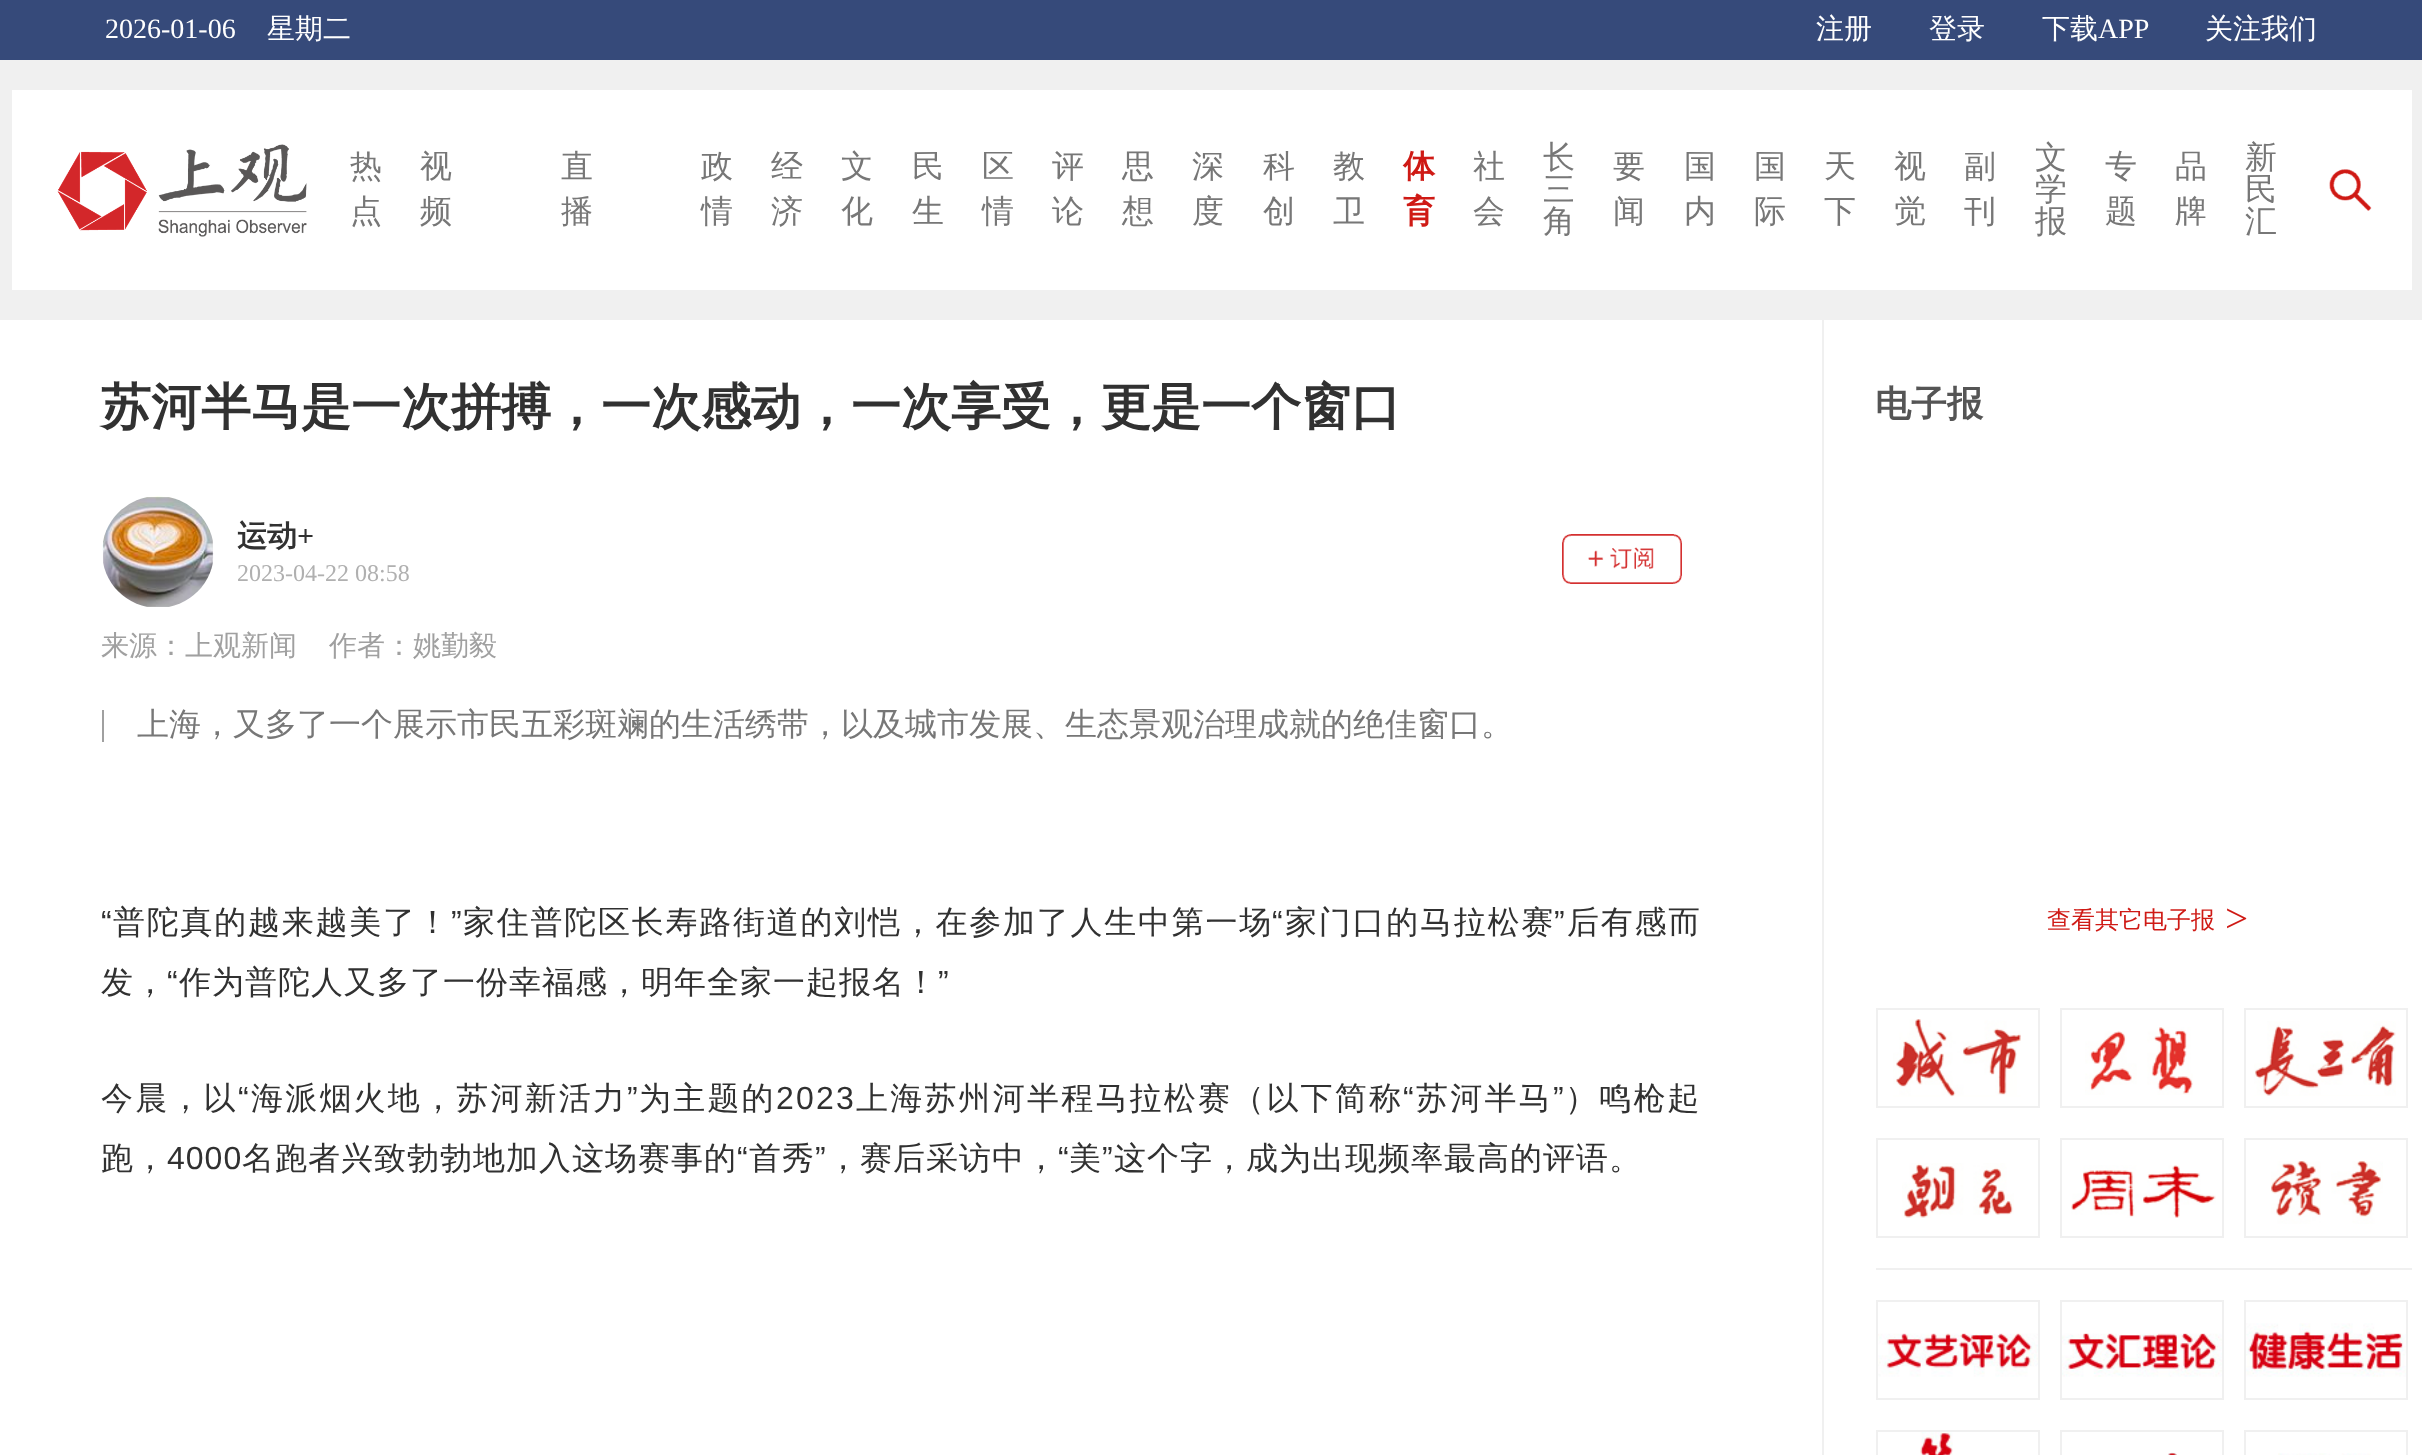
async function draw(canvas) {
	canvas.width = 2422;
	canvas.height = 1455;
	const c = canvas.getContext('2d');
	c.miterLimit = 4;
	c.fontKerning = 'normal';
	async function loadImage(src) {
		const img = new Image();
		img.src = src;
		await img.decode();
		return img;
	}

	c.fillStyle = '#fff';
	c.fillRect(0, 0, 2422, 1455);
	c.fillStyle = '#364a7a';
	c.fillRect(0, 0, 2422, 60);
	c.font = '28px Liberation Serif';
	c.fillStyle = '#fff';
	c.fillText('2026-01-06', 105, 38);
	c.font = '500 28px WenQuanYi Zen Hei';
	for (const [text, x, y] of [
		['星期二', 267, 38],
		['注册', 1816, 38],
		['登录', 1929, 38],
		['下载', 2042, 38],
	]) {
		c.fillText(text, x, y);
	}
	c.font = '28px Liberation Serif';
	c.fillText('APP', 2098, 38);
	c.font = '500 28px WenQuanYi Zen Hei';
	c.fillText('关注我们', 2205, 38);
	c.fillStyle = '#f0f0f0';
	c.fillRect(0, 60, 2422, 260);
	c.fillStyle = '#fff';
	c.fillRect(12, 90, 2400, 200);
	c.drawImage(await loadImage('img1.png'), 57, 144, 250, 93);
	c.font = '500 32px WenQuanYi Zen Hei';
	c.fillStyle = '#777';
	for (const [text, x, y] of [
		['热', 350, 177],
		['点', 350, 222],
		['视', 420, 177],
		['频', 420, 222],
		['直', 561, 177],
		['播', 561, 222],
		['政', 701, 177],
		['情', 701, 222],
		['经', 771, 177],
		['济', 771, 222],
		['文', 841, 177],
		['化', 841, 222],
		['民', 912, 177],
		['生', 912, 222],
		['区', 982, 177],
		['情', 982, 222],
		['评', 1052, 177],
		['论', 1052, 222],
		['思', 1122, 177],
		['想', 1122, 222],
		['深', 1192, 177],
		['度', 1192, 222],
		['科', 1263, 177],
		['创', 1263, 222],
		['教', 1333, 177],
		['卫', 1333, 222],
	]) {
		c.fillText(text, x, y);
	}
	c.font = 'bold 32px WenQuanYi Zen Hei';
	c.fillStyle = '#cf1a15';
	c.fillText('体', 1403, 177);
	c.fillText('育', 1403, 222);
	c.font = '500 32px WenQuanYi Zen Hei';
	c.fillStyle = '#777';
	for (const [text, x, y] of [
		['社', 1473, 177],
		['会', 1473, 222],
		['长', 1543, 168],
		['三', 1543, 200],
		['角', 1543, 232],
		['要', 1613, 177],
		['闻', 1613, 222],
		['国', 1684, 177],
		['内', 1684, 222],
		['国', 1754, 177],
		['际', 1754, 222],
		['天', 1824, 177],
		['下', 1824, 222],
		['视', 1894, 177],
		['觉', 1894, 222],
		['副', 1964, 177],
		['刊', 1964, 222],
		['文', 2035, 168],
		['学', 2035, 200],
		['报', 2035, 232],
		['专', 2105, 177],
		['题', 2105, 222],
		['品', 2175, 177],
		['牌', 2175, 222],
		['新', 2245, 168],
		['民', 2245, 200],
		['汇', 2245, 232],
	]) {
		c.fillText(text, x, y);
	}
	c.drawImage(await loadImage('img2.png'), 2329, 169, 43, 42);
	c.font = 'bold 50px WenQuanYi Zen Hei';
	c.fillStyle = '#313131';
	c.fillText('苏河半马是一次拼搏，一次感动，一次享受，更是一个窗口', 101, 424);
	c.drawImage(await loadImage('img3.png'), 102, 496, 112, 111);
	c.font = 'bold 30px WenQuanYi Zen Hei';
	c.fillText('运动', 237, 546);
	c.font = 'bold 30px Liberation Serif';
	c.fillText('+', 297, 546);
	c.font = '24px Liberation Serif';
	c.fillStyle = '#b0b0b0';
	c.fillText('2023-04-22 08:58', 237, 581);
	c.drawImage(await loadImage('img4.png'), 1562, 534, 120, 50);
	c.font = '500 28px WenQuanYi Zen Hei';
	c.fillStyle = '#a0a0a0';
	c.fillText('来源：上观新闻', 101, 655);
	c.fillText('作者：姚勤毅', 329, 655);
	c.fillRect(102, 710, 2, 32);
	c.font = '500 32px WenQuanYi Zen Hei';
	c.fillStyle = '#777';
	c.fillText('上海，又多了一个展示市民五彩斑斓的生活绣带，以及城市发展、生态景观治理成就的绝佳窗口。', 137, 735);
	c.letterSpacing = '1.75px';
	c.font = '32px Liberation Sans';
	c.fillStyle = '#313131';
	c.fillText('“', 101, 933);
	c.font = '500 32px WenQuanYi Zen Hei';
	c.fillText('普陀真的越来越美了！', 113, 933);
	c.font = '32px Liberation Sans';
	c.fillText('”', 451, 933);
	c.font = '500 32px WenQuanYi Zen Hei';
	c.fillText('家住普陀区长寿路街道的刘恺，在参加了人生中第一场', 463, 933);
	c.font = '32px Liberation Sans';
	c.fillText('“', 1272, 933);
	c.font = '500 32px WenQuanYi Zen Hei';
	c.fillText('家门口的马拉松赛', 1285, 933);
	c.font = '32px Liberation Sans';
	c.fillText('”', 1554, 933);
	c.font = '500 32px WenQuanYi Zen Hei';
	c.fillText('后有感而', 1567, 933);
	c.letterSpacing = '1px';
	c.fillText('发，', 101, 993);
	c.font = '32px Liberation Sans';
	c.fillText('“', 167, 993);
	c.font = '500 32px WenQuanYi Zen Hei';
	c.fillText('作为普陀人又多了一份幸福感，明年全家一起报名！', 179, 993);
	c.font = '32px Liberation Sans';
	c.fillText('”', 938, 993);
	c.letterSpacing = '2.2px';
	c.font = '500 32px WenQuanYi Zen Hei';
	c.fillText('今晨，以', 101, 1109);
	c.font = '32px Liberation Sans';
	c.fillText('“', 238, 1109);
	c.font = '500 32px WenQuanYi Zen Hei';
	c.fillText('海派烟火地，苏河新活力', 251, 1109);
	c.font = '32px Liberation Sans';
	c.fillText('”', 627, 1109);
	c.font = '500 32px WenQuanYi Zen Hei';
	c.fillText('为主题的', 639, 1109);
	c.font = '32px Liberation Sans';
	c.fillText('2023', 776, 1109);
	c.font = '500 32px WenQuanYi Zen Hei';
	c.fillText('上海苏州河半程马拉松赛（以下简称', 856, 1109);
	c.font = '32px Liberation Sans';
	c.fillText('“', 1403, 1109);
	c.font = '500 32px WenQuanYi Zen Hei';
	c.fillText('苏河半马', 1416, 1109);
	c.font = '32px Liberation Sans';
	c.fillText('”', 1553, 1109);
	c.font = '500 32px WenQuanYi Zen Hei';
	c.fillText('）鸣枪起', 1565, 1109);
	c.letterSpacing = '1px';
	c.fillText('跑，', 101, 1169);
	c.font = '32px Liberation Sans';
	c.fillText('4000', 167, 1169);
	c.font = '500 32px WenQuanYi Zen Hei';
	c.fillText('名跑者兴致勃勃地加入这场赛事的', 242, 1169);
	c.font = '32px Liberation Sans';
	c.fillText('“', 737, 1169);
	c.font = '500 32px WenQuanYi Zen Hei';
	c.fillText('首秀', 749, 1169);
	c.font = '32px Liberation Sans';
	c.fillText('”', 815, 1169);
	c.font = '500 32px WenQuanYi Zen Hei';
	c.fillText('，赛后采访中，', 827, 1169);
	c.font = '32px Liberation Sans';
	c.fillText('“', 1058, 1169);
	c.font = '500 32px WenQuanYi Zen Hei';
	c.fillText('美', 1069, 1169);
	c.font = '32px Liberation Sans';
	c.fillText('”', 1102, 1169);
	c.font = '500 32px WenQuanYi Zen Hei';
	c.fillText('这个字，成为出现频率最高的评语。', 1114, 1169);
	c.fillStyle = '#f0f0f0';
	c.fillRect(1822, 320, 2, 1135);
	c.letterSpacing = '0px';
	c.font = 'bold 36px WenQuanYi Zen Hei';
	c.fillStyle = '#555';
	c.fillText('电子报', 1875, 416);
	c.font = '500 24px WenQuanYi Zen Hei';
	c.fillStyle = '#cf1a15';
	c.fillText('查看其它电子报', 2047, 928);
	c.letterSpacing = '-9px';
	c.font = '41px Liberation Serif';
	c.fillText('>', 2225, 932);
	c.strokeStyle = '#f0f0f0';
	c.lineWidth = 2;
	c.strokeRect(1877, 1009, 162, 98);
	c.drawImage(await loadImage('img5.png'), 1893, 1019, 128, 78);
	c.strokeRect(2061, 1009, 162, 98);
	c.drawImage(await loadImage('img6.png'), 2085, 1027, 108, 68);
	c.strokeRect(2245, 1009, 162, 98);
	c.drawImage(await loadImage('img7.png'), 2254, 1021, 142, 75);
	c.strokeRect(1877, 1139, 162, 98);
	c.drawImage(await loadImage('img8.png'), 1902, 1163, 112, 55);
	c.strokeRect(2061, 1139, 162, 98);
	c.drawImage(await loadImage('img9.png'), 2071, 1165, 145, 53);
	c.strokeRect(2245, 1139, 162, 98);
	c.drawImage(await loadImage('img10.png'), 2271, 1161, 112, 63);
	c.fillStyle = '#f0f0f0';
	c.fillRect(1876, 1268, 536, 2);
	c.strokeRect(1877, 1301, 162, 98);
	c.drawImage(await loadImage('img11.png'), 1878, 1333, 160, 44);
	c.strokeRect(2061, 1301, 162, 98);
	c.drawImage(await loadImage('img12.png'), 2062, 1333, 160, 44);
	c.strokeRect(2245, 1301, 162, 98);
	c.drawImage(await loadImage('img13.png'), 2246, 1323, 160, 54);
	c.strokeRect(1877, 1431, 162, 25);
	c.drawImage(await loadImage('img14.png'), 1920, 1432, 33, 23);
	c.strokeRect(2061, 1431, 162, 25);
	c.drawImage(await loadImage('img15.png'), 2168, 1452, 9, 3);
	c.strokeRect(2245, 1431, 162, 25);
	c.drawImage(await loadImage('img16.png'), 2278, 1453, 93, 2);
}

draw(document.querySelector('canvas'));
